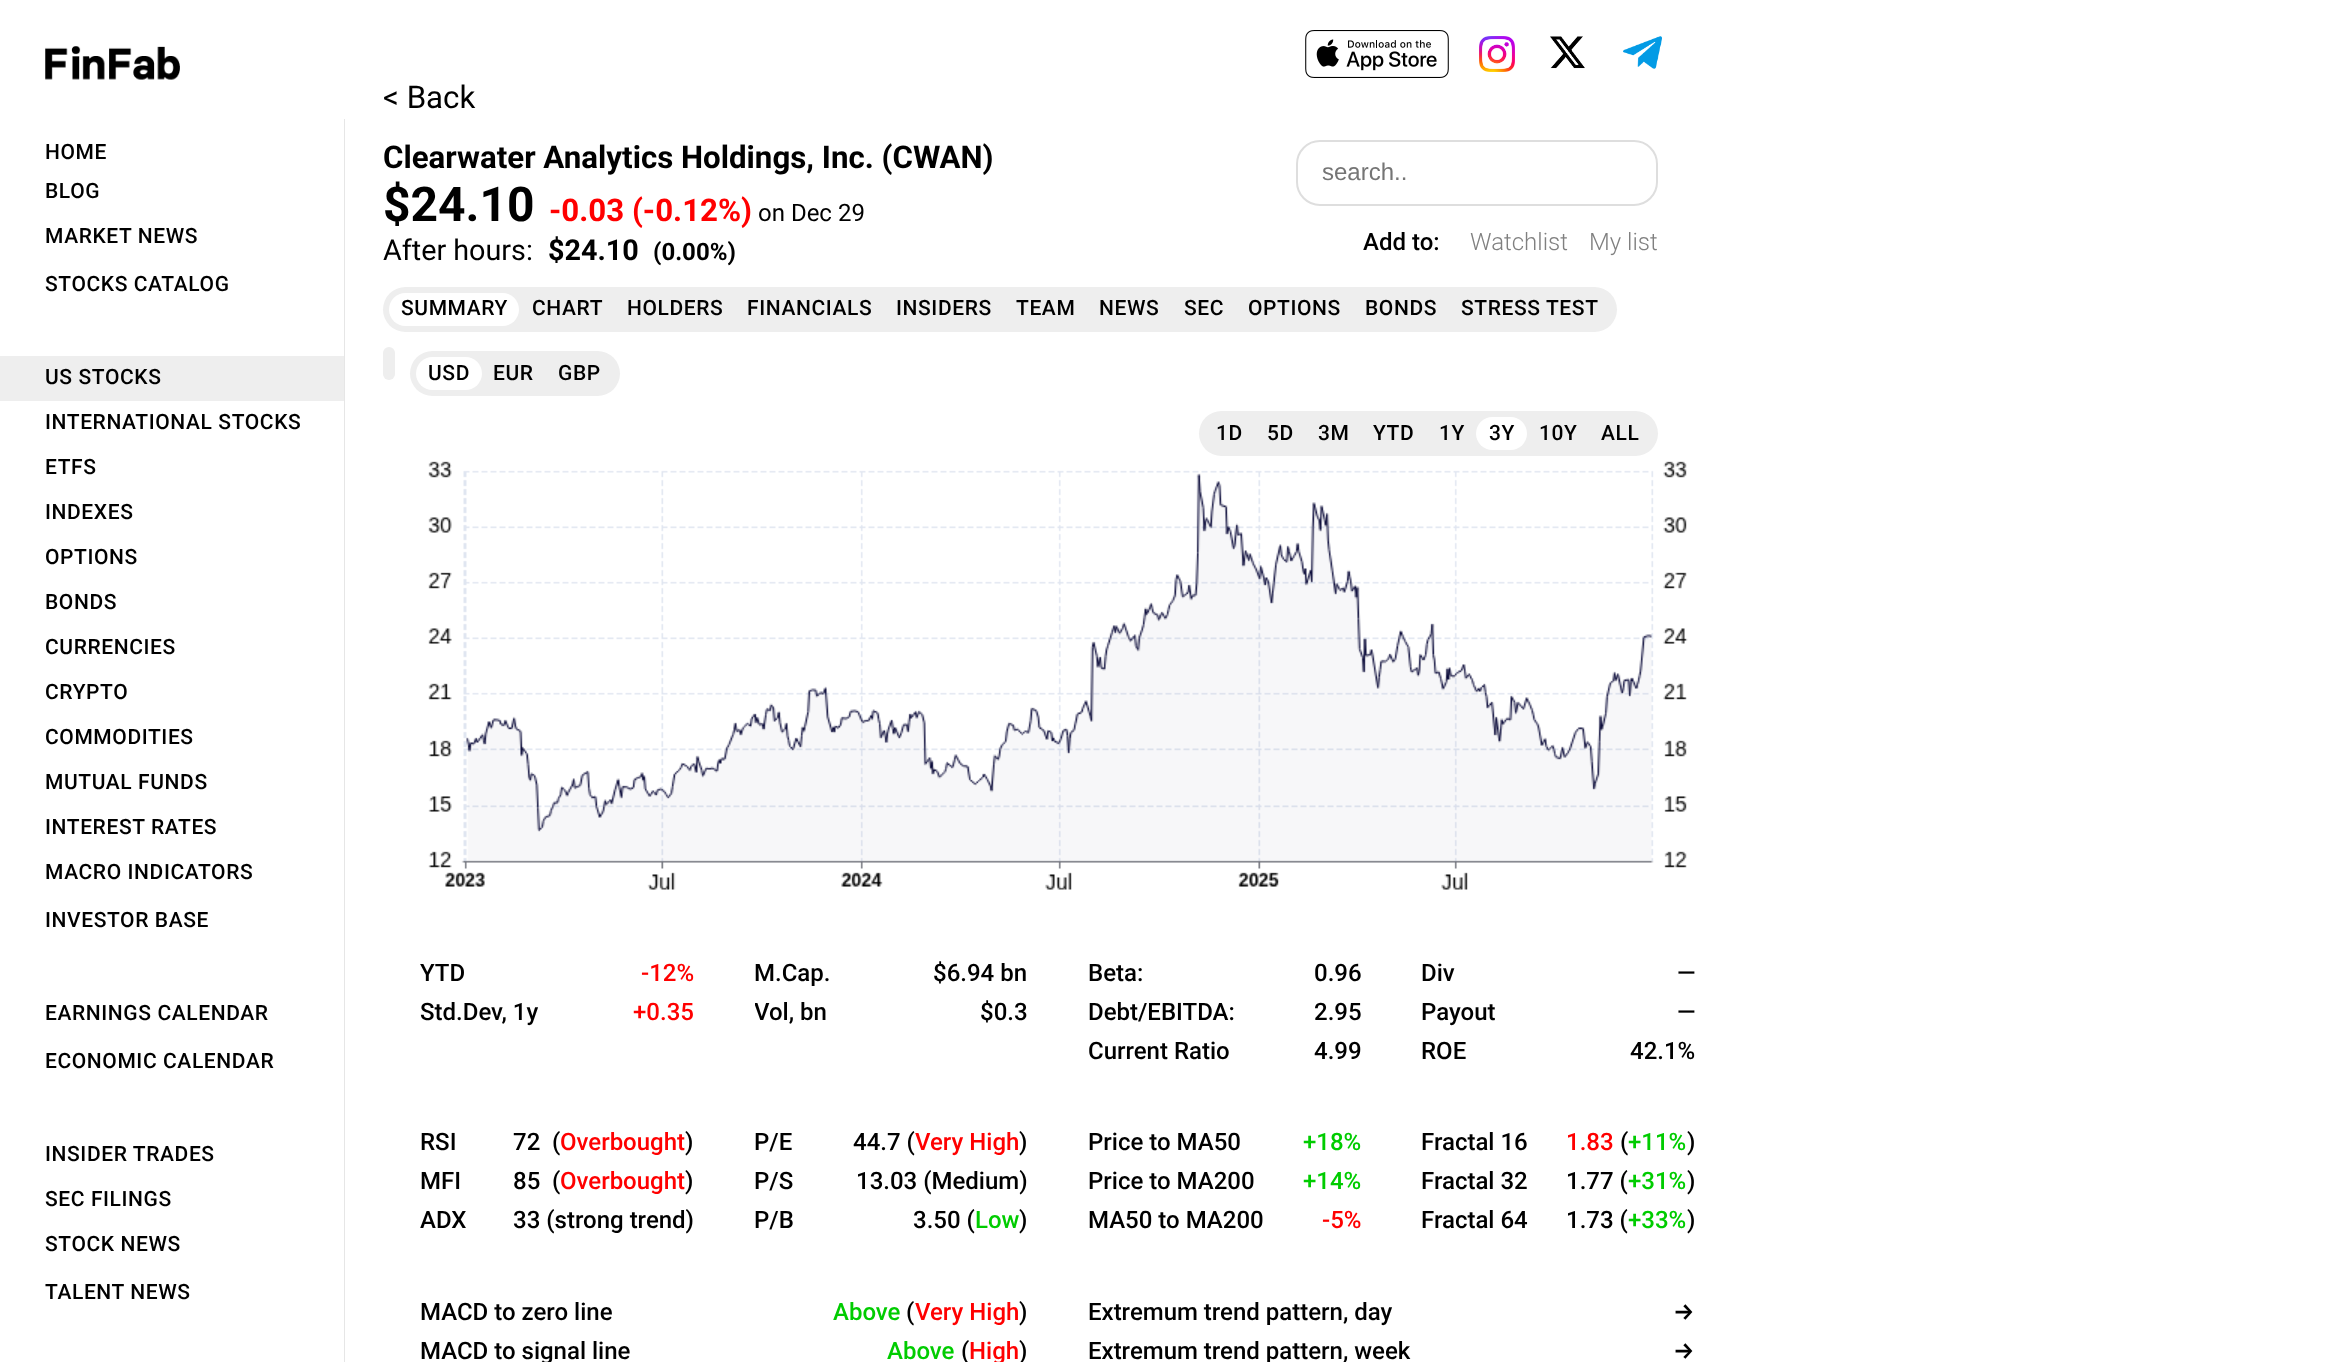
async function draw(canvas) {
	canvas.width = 2337;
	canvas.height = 1362;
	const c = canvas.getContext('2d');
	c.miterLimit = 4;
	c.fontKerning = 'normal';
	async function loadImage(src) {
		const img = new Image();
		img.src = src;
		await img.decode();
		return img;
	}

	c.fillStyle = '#fff';
	c.fillRect(0, 0, 2337, 1362);
	c.drawImage(await loadImage('img1.png'), 45, 46, 135, 34);
	c.fillStyle = '#e6e6e6';
	c.fillRect(344, 119, 1, 1243);
	c.letterSpacing = '0.6px';
	c.font = '500 21px Roboto';
	c.fillStyle = '#000';
	for (const [text, x, y] of [
		['HOME', 45, 159],
		['BLOG', 45, 198],
		['MARKET NEWS', 45, 243],
		['STOCKS CATALOG', 45, 291],
	]) {
		c.fillText(text, x, y);
	}
	c.fillStyle = '#eee';
	c.fillRect(0, 356, 344, 45);
	c.fillStyle = '#000';
	for (const [text, x, y] of [
		['US STOCKS', 45, 384],
		['INTERNATIONAL STOCKS', 45, 429],
		['ETFS', 45, 474],
		['INDEXES', 45, 519],
		['OPTIONS', 45, 564],
		['BONDS', 45, 609],
		['CURRENCIES', 45, 654],
		['CRYPTO', 45, 699],
		['COMMODITIES', 45, 744],
		['MUTUAL FUNDS', 45, 789],
		['INTEREST RATES', 45, 834],
		['MACRO INDICATORS', 45, 879],
		['INVESTOR BASE', 45, 927],
		['EARNINGS CALENDAR', 45, 1020],
		['ECONOMIC CALENDAR', 45, 1068],
		['INSIDER TRADES', 45, 1161],
		['SEC FILINGS', 45, 1206],
		['STOCK NEWS', 45, 1251],
		['TALENT NEWS', 45, 1299],
	]) {
		c.fillText(text, x, y);
	}
	c.drawImage(await loadImage('img2.png'), 1305, 30, 144, 48);
	c.drawImage(await loadImage('img3.png'), 1479, 36, 36, 36);
	c.drawImage(await loadImage('img4.png'), 1550, 36, 35, 33);
	c.drawImage(await loadImage('img5.png'), 1623, 36, 39, 33);
	c.letterSpacing = '0px';
	c.font = '31.25px Roboto';
	c.fillText('< Back', 383, 108);
	c.font = 'bold 31.25px Roboto';
	c.fillText('Clearwater Analytics Holdings, Inc. (CWAN)', 383, 168);
	c.font = 'bold 48px Roboto';
	c.fillText('$24.10', 383, 221);
	c.font = 'bold 31.25px Roboto';
	c.fillStyle = '#f00';
	c.fillText('-0.03 (-0.12%)', 549, 221);
	c.font = '24px Roboto';
	c.fillStyle = '#000';
	c.fillText('on Dec 29', 758, 221);
	c.font = '28.75px Roboto';
	c.fillText('After hours:', 383, 260);
	c.font = 'bold 28.75px Roboto';
	c.fillText('$24.10', 548, 260);
	c.font = 'bold 24px Roboto';
	c.fillText('(0.00%)', 653, 260);
	c.beginPath();
	c.roundRect(1297, 141, 360, 64, 23);
	c.strokeStyle = '#dedede';
	c.lineWidth = 2;
	c.stroke();
	c.font = '24px Liberation Sans';
	c.fillStyle = '#757575';
	c.fillText('search..', 1322, 180);
	c.font = '500 24px Roboto';
	c.fillStyle = '#000';
	c.fillText('Add to:', 1363, 250);
	c.font = '300 24px Roboto';
	c.fillStyle = '#808080';
	c.fillText('Watchlist', 1470, 250);
	c.fillText('My list', 1589, 250);
	c.fillStyle = '#eee';
	c.beginPath();
	c.roundRect(383, 287, 1234, 45, 22.5);
	c.fill();
	c.fillStyle = '#fff';
	c.beginPath();
	c.roundRect(389, 293, 130, 33, 16.5);
	c.fill();
	c.letterSpacing = '0.6px';
	c.font = '500 21px Roboto';
	c.fillStyle = '#000';
	for (const [text, x, y] of [
		['SUMMARY', 401, 315],
		['CHART', 532, 315],
		['HOLDERS', 627, 315],
		['FINANCIALS', 747, 315],
		['INSIDERS', 896, 315],
		['TEAM', 1016, 315],
		['NEWS', 1099, 315],
		['SEC', 1184, 315],
		['OPTIONS', 1248, 315],
		['BONDS', 1365, 315],
		['STRESS TEST', 1461, 315],
	]) {
		c.fillText(text, x, y);
	}
	c.fillStyle = '#eee';
	c.beginPath();
	c.roundRect(383, 347, 12, 33, 6);
	c.fill();
	c.beginPath();
	c.roundRect(410, 351, 210, 45, 22.5);
	c.fill();
	c.fillStyle = '#fff';
	c.beginPath();
	c.roundRect(416, 357, 66, 33, 16.5);
	c.fill();
	c.fillStyle = '#000';
	for (const [text, x, y] of [
		['USD', 428, 380],
		['EUR', 493, 380],
		['GBP', 558, 380],
	]) {
		c.fillText(text, x, y);
	}
	c.fillStyle = '#eee';
	c.beginPath();
	c.roundRect(1199, 411, 459, 45, 22.5);
	c.fill();
	c.fillStyle = '#000';
	for (const [text, x, y] of [
		['1D', 1216, 440],
		['5D', 1267, 440],
		['3M', 1318, 440],
		['YTD', 1373, 440],
		['1Y', 1439, 440],
	]) {
		c.fillText(text, x, y);
	}
	c.fillStyle = '#fff';
	c.beginPath();
	c.roundRect(1476, 417, 51, 33, 16.5);
	c.fill();
	c.fillStyle = '#000';
	for (const [text, x, y] of [
		['3Y', 1489, 440],
		['10Y', 1539, 440],
		['ALL', 1601, 440],
	]) {
		c.fillText(text, x, y);
	}
	c.drawImage(await loadImage('img6.png'), 428, 461, 1260, 429);
	c.letterSpacing = '0px';
	c.font = '500 24px Roboto';
	c.fillText('YTD', 420, 981);
	c.fillStyle = '#f00';
	c.fillText('-12%', 641, 981);
	c.fillStyle = '#000';
	c.fillText('Std.Dev, 1y', 420, 1020);
	c.fillStyle = '#f00';
	c.fillText('+0.35', 633, 1020);
	c.fillStyle = '#000';
	c.fillText('M.Cap.', 754, 981);
	c.fillText('$6.94 bn', 933, 981);
	c.save();
	c.beginPath();
	c.rect(755, 998, 273, 36);
	c.clip();
	c.fillText('Vol, bn', 754, 1020);
	c.restore();
	for (const [text, x, y] of [
		['$0.3', 980, 1020],
		['Beta:', 1088, 981],
		['0.96', 1314, 981],
		['Debt/EBITDA:', 1088, 1020],
		['2.95', 1314, 1020],
		['Current Ratio', 1088, 1059],
		['4.99', 1314, 1059],
		['Div', 1421, 981],
		['—', 1677, 981],
		['Payout', 1421, 1020],
		['—', 1677, 1020],
		['ROE', 1421, 1059],
		['42.1%', 1630, 1059],
		['RSI', 420, 1150],
		['72', 513, 1150],
		['(', 552, 1150],
	]) {
		c.fillText(text, x, y);
	}
	c.fillStyle = '#f00';
	c.fillText('Overbought', 560, 1150);
	c.fillStyle = '#000';
	for (const [text, x, y] of [
		[')', 685, 1150],
		['MFI', 420, 1189],
		['85', 513, 1189],
		['(', 552, 1189],
	]) {
		c.fillText(text, x, y);
	}
	c.fillStyle = '#f00';
	c.fillText('Overbought', 560, 1189);
	c.fillStyle = '#000';
	for (const [text, x, y] of [
		[')', 685, 1189],
		['ADX', 420, 1228],
		['33 (strong trend)', 513, 1228],
		['P/E', 754, 1150],
		['44.7 (', 853, 1150],
	]) {
		c.fillText(text, x, y);
	}
	c.fillStyle = '#f00';
	c.fillText('Very High', 915, 1150);
	c.fillStyle = '#000';
	for (const [text, x, y] of [
		[')', 1019, 1150],
		['P/S', 754, 1189],
		['13.03 (Medium)', 856, 1189],
		['P/B', 754, 1228],
		['3.50 (', 913, 1228],
	]) {
		c.fillText(text, x, y);
	}
	c.fillStyle = '#0c0';
	c.fillText('Low', 975, 1228);
	c.fillStyle = '#000';
	c.fillText(')', 1019, 1228);
	c.fillText('Price to MA50', 1088, 1150);
	c.fillStyle = '#0c0';
	c.fillText('+18%', 1303, 1150);
	c.fillStyle = '#000';
	c.fillText('Price to MA200', 1088, 1189);
	c.fillStyle = '#0c0';
	c.fillText('+14%', 1303, 1189);
	c.fillStyle = '#000';
	c.fillText('MA50 to MA200', 1088, 1228);
	c.fillStyle = '#f00';
	c.fillText('-5%', 1322, 1228);
	c.fillStyle = '#000';
	c.fillText('Fractal 16', 1421, 1150);
	c.fillStyle = '#f00';
	c.fillText('1.83', 1566, 1150);
	c.fillStyle = '#000';
	c.fillText('(', 1620, 1150);
	c.fillStyle = '#0c0';
	c.fillText('+11%', 1628, 1150);
	c.fillStyle = '#000';
	for (const [text, x, y] of [
		[')', 1687, 1150],
		['Fractal 32', 1421, 1189],
		['1.77 (', 1566, 1189],
	]) {
		c.fillText(text, x, y);
	}
	c.fillStyle = '#0c0';
	c.fillText('+31%', 1628, 1189);
	c.fillStyle = '#000';
	for (const [text, x, y] of [
		[')', 1687, 1189],
		['Fractal 64', 1421, 1228],
		['1.73 (', 1566, 1228],
	]) {
		c.fillText(text, x, y);
	}
	c.fillStyle = '#0c0';
	c.fillText('+33%', 1628, 1228);
	c.fillStyle = '#000';
	c.fillText(')', 1687, 1228);
	c.fillText('MACD to zero line', 420, 1320);
	c.fillStyle = '#0c0';
	c.fillText('Above', 833, 1320);
	c.fillStyle = '#000';
	c.fillText('(', 906, 1320);
	c.fillStyle = '#f00';
	c.fillText('Very High', 915, 1320);
	c.fillStyle = '#000';
	c.fillText(')', 1019, 1320);
	c.fillText('MACD to signal line', 420, 1359);
	c.fillStyle = '#0c0';
	c.fillText('Above', 887, 1359);
	c.fillStyle = '#000';
	c.fillText('(', 961, 1359);
	c.fillStyle = '#f00';
	c.fillText('High', 969, 1359);
	c.fillStyle = '#000';
	c.fillText(')', 1019, 1359);
	c.fillText('Extremum trend pattern, day', 1088, 1320);
	c.font = '500 24px Fira Sans';
	c.fillText('→', 1673, 1320);
	c.font = '500 24px Roboto';
	c.fillText('Extremum trend pattern, week', 1088, 1359);
	c.font = '500 24px Fira Sans';
	c.fillText('→', 1673, 1359);
}

draw(document.querySelector('canvas'));
